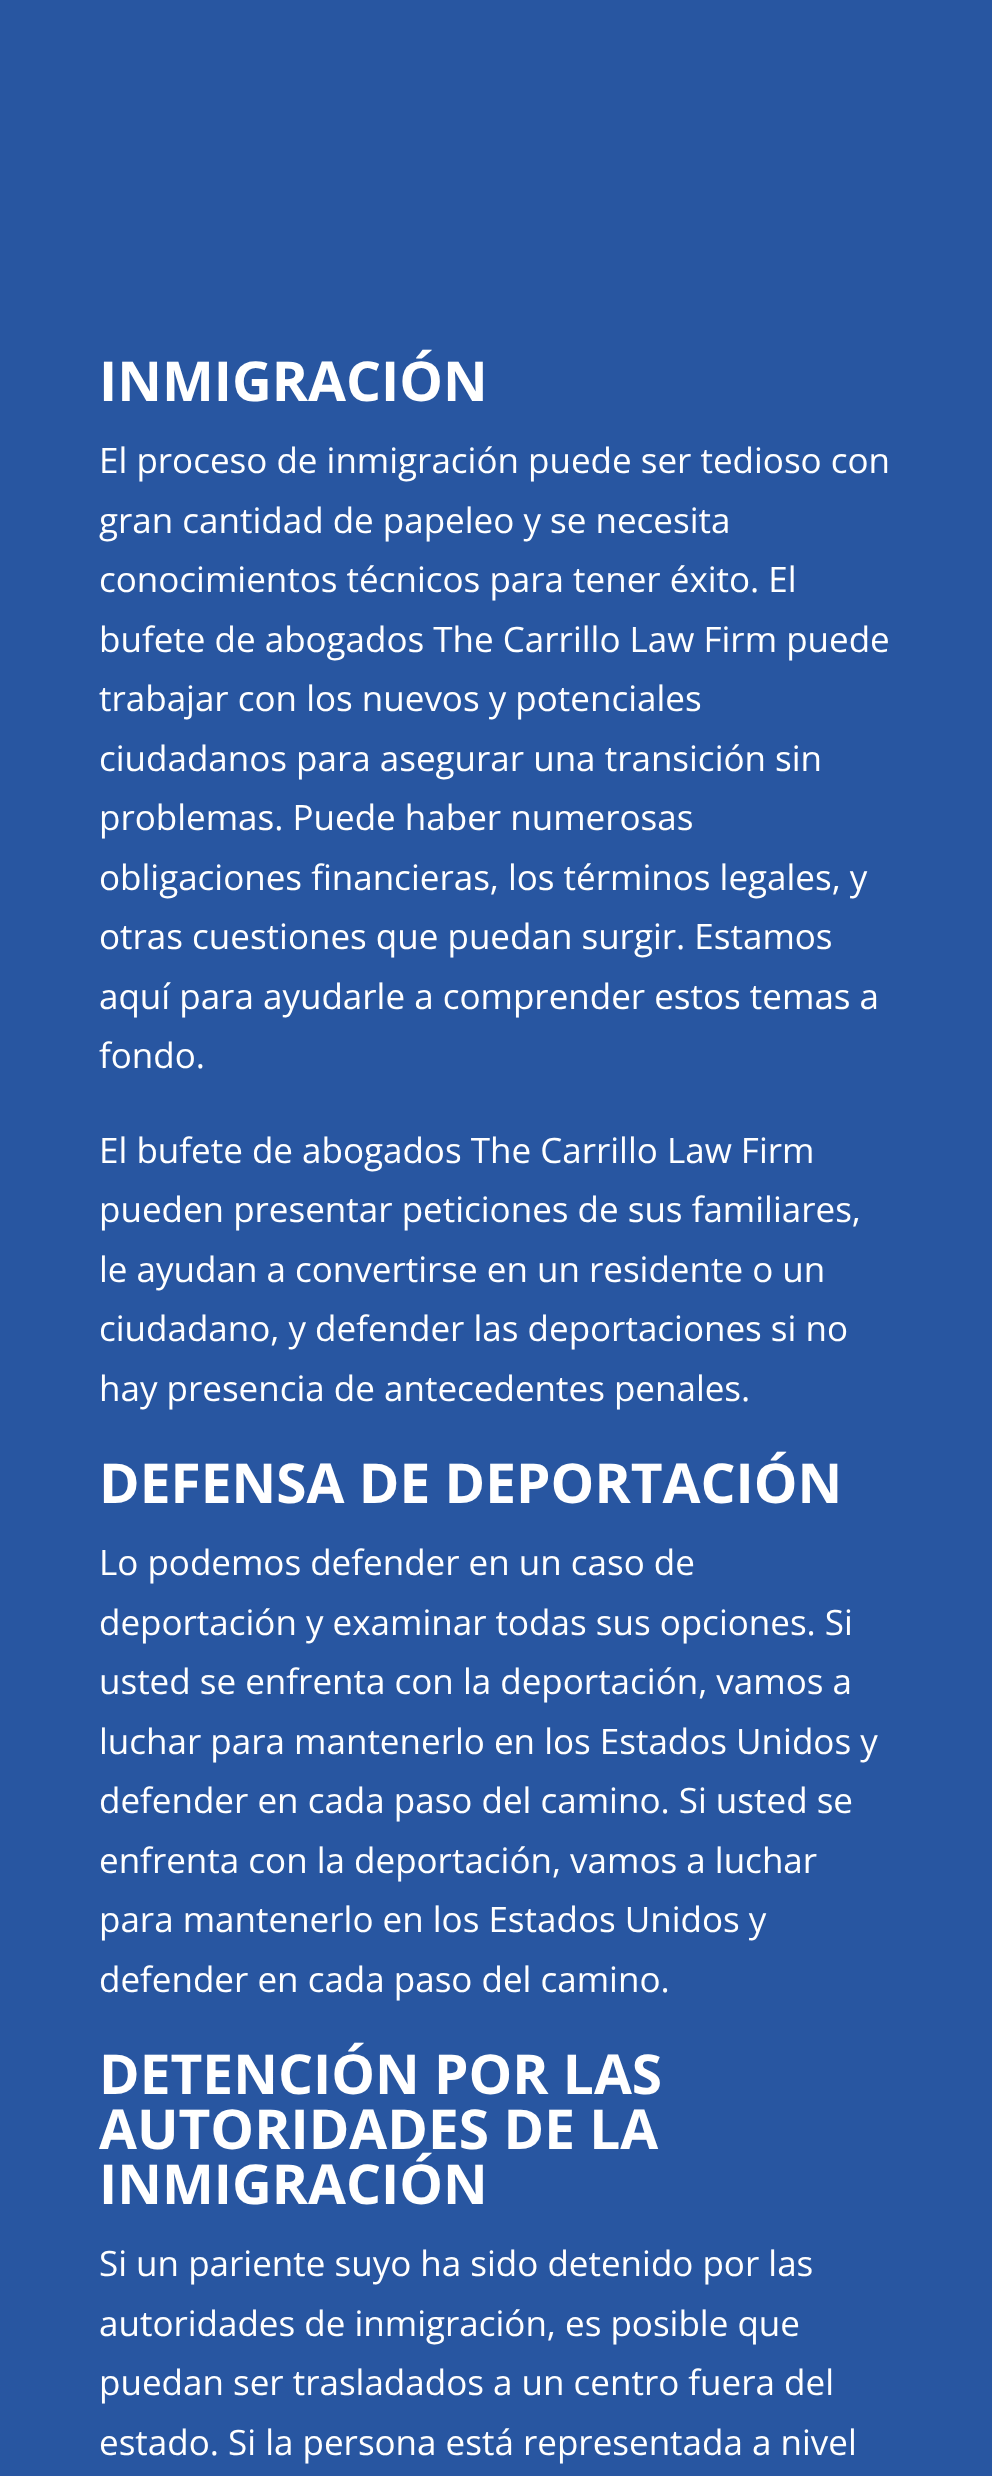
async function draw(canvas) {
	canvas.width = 992;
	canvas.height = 2476;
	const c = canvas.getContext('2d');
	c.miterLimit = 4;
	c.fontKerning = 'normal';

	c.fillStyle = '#2856a1';
	c.fillRect(0, 0, 992, 2476);
	c.font = 'bold 55px Open Sans';
	c.fillStyle = '#fff';
	c.fillText('INMIGRACIÓN', 99, 401);
	c.font = '35px Open Sans';
	for (const [text, x, y] of [
		['El proceso de inmigración puede ser tedioso con', 99, 473],
		['gran cantidad de papeleo y se necesita', 99, 533],
		['conocimientos técnicos para tener éxito. El', 99, 592],
		['bufete de abogados The Carrillo Law Firm puede', 99, 652],
		['trabajar con los nuevos y potenciales', 99, 711],
		['ciudadanos para asegurar una transición sin', 99, 771],
		['problemas. Puede haber numerosas', 99, 830],
		['obligaciones financieras, los términos legales, y', 99, 890],
		['otras cuestiones que puedan surgir. Estamos', 99, 949],
		['aquí para ayudarle a comprender estos temas a', 99, 1009],
		['fondo.', 99, 1068],
		['El bufete de abogados The Carrillo Law Firm', 99, 1163],
		['pueden presentar peticiones de sus familiares,', 99, 1222],
		['le ayudan a convertirse en un residente o un', 99, 1282],
		['ciudadano, y defender las deportaciones si no', 99, 1341],
		['hay presencia de antecedentes penales.', 99, 1401],
	]) {
		c.fillText(text, x, y);
	}
	c.font = 'bold 55px Open Sans';
	c.fillText('DEFENSA DE DEPORTACIÓN', 99, 1503);
	c.font = '35px Open Sans';
	for (const [text, x, y] of [
		['Lo podemos defender en un caso de', 99, 1575],
		['deportación y examinar todas sus opciones. Si', 99, 1635],
		['usted se enfrenta con la deportación, vamos a', 99, 1694],
		['luchar para mantenerlo en los Estados Unidos y', 99, 1754],
		['defender en cada paso del camino. Si usted se', 99, 1813],
		['enfrenta con la deportación, vamos a luchar', 99, 1873],
		['para mantenerlo en los Estados Unidos y', 99, 1932],
		['defender en cada paso del camino.', 99, 1992],
	]) {
		c.fillText(text, x, y);
	}
	c.font = 'bold 55px Open Sans';
	for (const [text, x, y] of [
		['DETENCIÓN POR LAS', 99, 2094],
		['AUTORIDADES DE LA', 99, 2149],
		['INMIGRACIÓN', 99, 2204],
	]) {
		c.fillText(text, x, y);
	}
	c.font = '35px Open Sans';
	for (const [text, x, y] of [
		['Si un pariente suyo ha sido detenido por las', 99, 2276],
		['autoridades de inmigración, es posible que', 99, 2336],
		['puedan ser trasladados a un centro fuera del', 99, 2395],
		['estado. Si la persona está representada a nivel', 99, 2455],
	]) {
		c.fillText(text, x, y);
	}
}

draw(document.querySelector('canvas'));
